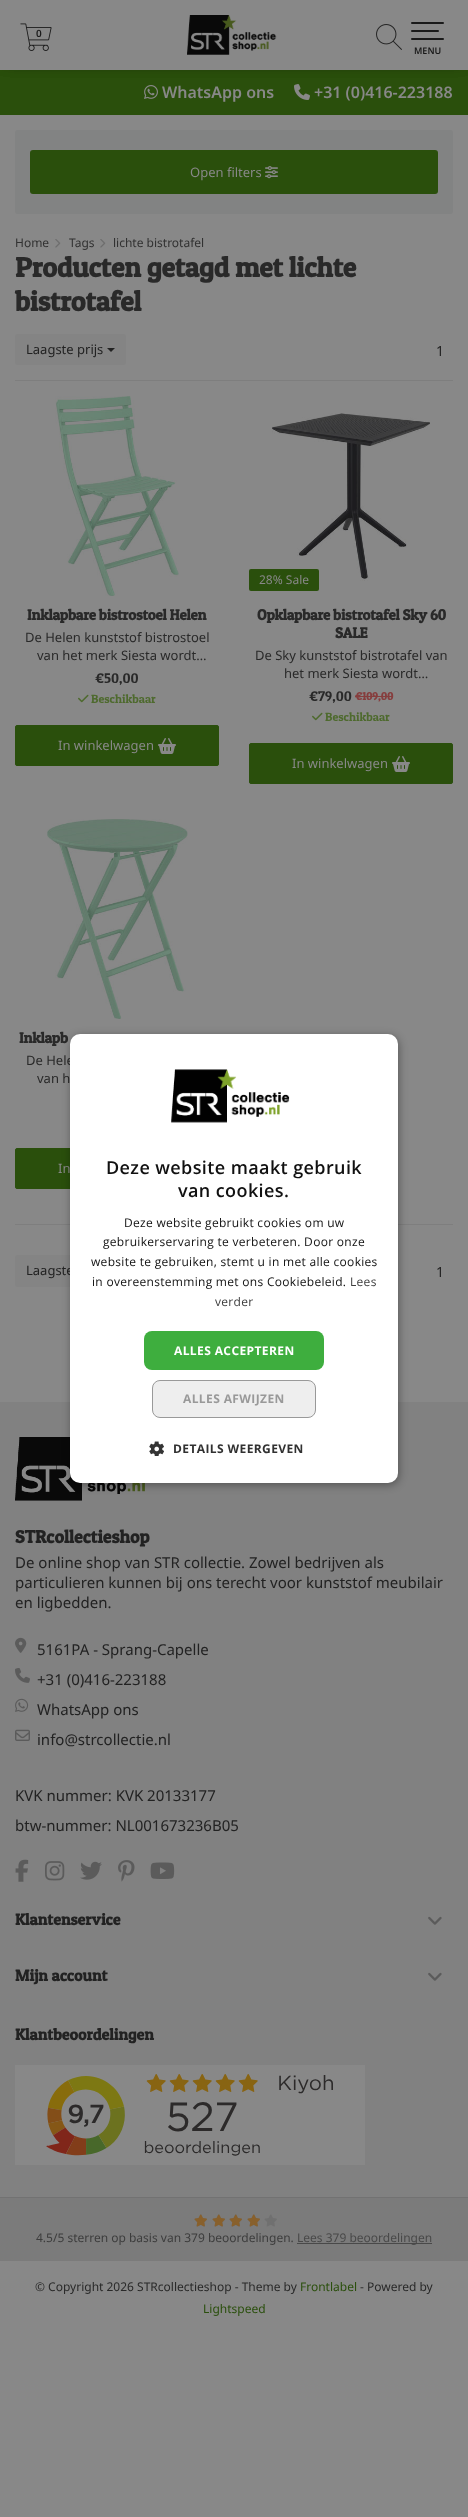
async function draw(canvas) {
	canvas.width = 468;
	canvas.height = 2517;
	const c = canvas.getContext('2d');
	c.miterLimit = 4;
	c.fontKerning = 'normal';
	async function loadImage(src) {
		const img = new Image();
		img.src = src;
		await img.decode();
		return img;
	}

	c.fillStyle = '#888';
	c.fillRect(0, 0, 468, 2517);
	c.fillStyle = '#2a4f0c';
	c.fillRect(0, 70, 468, 45);
	c.drawImage(await loadImage('img5.png'), 294, 84, 16, 16);
	c.fillStyle = '#090909';
	c.filter = 'blur(10px)';
	c.beginPath();
	c.rect(6, 6, 456, 48);
	c.fill();
	c.filter = 'none';
	c.filter = 'blur(10px)';
	c.beginPath();
	c.rect(6, 6, 456, 48);
	c.fill();
	c.filter = 'none';
	c.fillStyle = '#888';
	c.fillRect(0, 0, 468, 70);
	c.drawImage(await loadImage('img1.png'), 187, 15, 90, 40);
	c.drawImage(await loadImage('img2.png'), 20, 23, 32, 28);
	c.font = '600 10px Noto Sans';
	c.fillStyle = '#1a1a1a';
	c.fillText('0', 36, 37);
	c.drawImage(await loadImage('img3.png'), 376, 24, 26, 26);
	c.beginPath();
	c.roundRect(411, 22, 33, 2, 1);
	c.fill();
	c.beginPath();
	c.roundRect(411, 30, 28, 2, 1);
	c.fill();
	c.beginPath();
	c.roundRect(411, 38, 33, 2, 1);
	c.fill();
	c.font = '600 9px Noto Sans';
	c.fillText('MENU', 414, 54);
	c.drawImage(await loadImage('img4.png'), 144, 85, 14, 14);
	c.font = '600 16px Noto Sans';
	c.fillStyle = '#888';
	c.fillText('WhatsApp ons', 162, 98);
	c.fillText('+31 (0)416-223188', 314, 98);
	c.fillStyle = '#828383';
	c.beginPath();
	c.roundRect(15, 130, 438, 84, 3);
	c.fill();
	c.fillStyle = '#2a4f0c';
	c.beginPath();
	c.roundRect(30, 150, 408, 44, 3);
	c.fill();
	c.font = '13px Noto Sans';
	c.fillStyle = '#888';
	c.fillText('Open filters', 190, 177);
	c.drawImage(await loadImage('img6.png'), 265, 166, 13, 13);
	c.font = '12px Noto Sans';
	c.fillStyle = '#313131';
	c.fillText('Home', 15, 247);
	c.drawImage(await loadImage('img7.png'), 55, 239, 6, 9);
	c.fillText('Tags', 69, 247);
	c.drawImage(await loadImage('img7.png'), 100, 239, 6, 9);
	c.fillText('lichte bistrotafel', 113, 247);
	c.letterSpacing = '-0.25px';
	c.font = 'bold 28px Patua One';
	c.fillStyle = '#292929';
	c.fillText('Producten getagd met lichte', 15, 277);
	c.fillText('bistrotafel', 15, 311);
	c.fillStyle = '#848484';
	c.beginPath();
	c.roundRect(15, 334, 111, 31, 3);
	c.fill();
	c.letterSpacing = '0px';
	c.font = '13px Noto Sans';
	c.fillStyle = '#222';
	c.fillText('Laagste prijs', 26, 354);
	c.beginPath();
	c.moveTo(107, 348);
	c.lineTo(115, 348);
	c.lineTo(111, 352);
	c.closePath();
	c.fill();
	c.font = '14px Noto Sans';
	c.fillText('1', 436, 356);
	c.fillStyle = '#7e7e7e';
	c.fillRect(15, 380, 438, 1);
	c.drawImage(await loadImage('img8.png'), 55, 396, 124, 200);
	c.letterSpacing = '-0.25px';
	c.font = 'bold 15px Patua One';
	c.fillStyle = '#292929';
	c.fillText('Inklapbare bistrostoel Helen', 27, 620);
	c.letterSpacing = '0px';
	c.font = '13px Noto Sans';
	c.fillText('De Helen kunststof bistrostoel', 25, 642);
	c.fillText('van het merk Siesta wordt…', 37, 660);
	c.font = '14px Patua One';
	c.fillText('€50,00', 95, 683);
	c.drawImage(await loadImage('img9.png'), 78, 694, 11, 9);
	c.font = '12px Patua One';
	c.fillStyle = '#4e6a2e';
	c.fillText('Beschikbaar', 91, 703);
	c.fillStyle = '#2a4f0c';
	c.beginPath();
	c.roundRect(15.5, 725.5, 203, 40, 1.5);
	c.fill();
	c.strokeStyle = '#2a4f0c';
	c.stroke();
	c.font = '13px Noto Sans';
	c.fillStyle = '#888';
	c.fillText('In winkelwagen', 58, 750);
	c.drawImage(await loadImage('img10.png'), 158, 738, 18, 16);
	c.drawImage(await loadImage('img11.png'), 272, 413, 158, 168);
	c.fillStyle = '#2a4f0c';
	c.beginPath();
	c.roundRect(249, 569, 70, 22, 2);
	c.fill();
	c.font = '12px Noto Sans';
	c.fillStyle = '#888';
	c.fillText('28% Sale', 259, 584);
	c.letterSpacing = '-0.25px';
	c.font = 'bold 15px Patua One';
	c.fillStyle = '#292929';
	c.fillText('Opklapbare bistrotafel Sky 60', 257, 620);
	c.fillText('SALE', 335, 638);
	c.letterSpacing = '0px';
	c.font = '13px Noto Sans';
	c.fillText('De Sky kunststof bistrotafel van', 255, 660);
	c.fillText('het merk Siesta wordt…', 284, 678);
	c.font = '14px Patua One';
	c.fillText('€79,00', 309, 701);
	c.font = 'bold 11px Patua One';
	c.fillStyle = '#863e3e';
	c.fillText('€109,00', 355, 700);
	c.fillRect(355, 696, 38, 1);
	c.drawImage(await loadImage('img9.png'), 312, 712, 11, 9);
	c.font = '12px Patua One';
	c.fillStyle = '#4e6a2e';
	c.fillText('Beschikbaar', 325, 721);
	c.fillStyle = '#2a4f0c';
	c.beginPath();
	c.roundRect(249.5, 743.5, 203, 40, 1.5);
	c.fill();
	c.stroke();
	c.font = '13px Noto Sans';
	c.fillStyle = '#888';
	c.fillText('In winkelwagen', 292, 768);
	c.drawImage(await loadImage('img10.png'), 392, 756, 18, 16);
	c.drawImage(await loadImage('img12.png'), 47, 819, 141, 200);
	c.letterSpacing = '-0.25px';
	c.font = 'bold 15px Patua One';
	c.fillStyle = '#292929';
	c.fillText('Inklapb', 19, 1043);
	c.letterSpacing = '0px';
	c.font = '13px Noto Sans';
	c.fillText('De Hele', 26, 1065);
	c.fillText('van h', 37, 1083);
	c.fillStyle = '#2a4f0c';
	c.beginPath();
	c.roundRect(15.5, 1148.5, 203, 40, 1.5);
	c.fill();
	c.stroke();
	c.fillStyle = '#888';
	c.fillText('In', 58, 1173);
	c.fillStyle = '#7e7e7e';
	c.fillRect(15, 1224, 438, 1);
	c.fillStyle = '#848484';
	c.beginPath();
	c.roundRect(15, 1255, 111, 32, 3);
	c.fill();
	c.fillStyle = '#222';
	c.fillText('Laagste', 26, 1275);
	c.font = '14px Noto Sans';
	c.fillText('1', 436, 1277);
	c.fillStyle = '#818181';
	c.fillRect(0, 1402, 468, 795);
	c.drawImage(await loadImage('img13.png'), 15, 1437, 130, 64);
	c.font = 'bold 18px Patua One';
	c.fillStyle = '#222';
	c.fillText('STRcollectieshop', 15, 1543);
	c.font = '15px Noto Sans';
	for (const [text, x, y] of [
		['De online shop van STR collectie. Zowel bedrijven als', 15, 1568],
		['particulieren kunnen bij ons terecht voor kunststof meubilair', 15, 1588],
		['en ligbedden.', 15, 1608],
	]) {
		c.fillText(text, x, y);
	}
	c.drawImage(await loadImage('img14.png'), 15, 1637, 12, 16);
	c.fillText('5161PA - Sprang-Capelle', 37, 1655);
	c.drawImage(await loadImage('img15.png'), 15, 1668, 15, 15);
	c.fillText('+31 (0)416-223188', 37, 1685);
	c.drawImage(await loadImage('img16.png'), 15, 1698, 14, 14);
	c.fillText('WhatsApp ons', 37, 1715);
	c.drawImage(await loadImage('img17.png'), 15, 1729, 15, 12);
	for (const [text, x, y] of [
		['info@strcollectie.nl', 37, 1745],
		['KVK nummer: KVK 20133177', 15, 1801],
		['btw-nummer: NL001673236B05', 15, 1831],
	]) {
		c.fillText(text, x, y);
	}
	c.drawImage(await loadImage('img18.png'), 15, 1859, 14, 23);
	c.drawImage(await loadImage('img19.png'), 45, 1861, 20, 20);
	c.drawImage(await loadImage('img20.png'), 80, 1861, 22, 19);
	c.drawImage(await loadImage('img21.png'), 118, 1860, 17, 22);
	c.drawImage(await loadImage('img22.png'), 150, 1862, 25, 17);
	c.font = 'bold 16px Patua One';
	c.fillText('Klantenservice', 15, 1925);
	c.drawImage(await loadImage('img23.png'), 428, 1916, 14, 9);
	c.fillText('Mijn account', 15, 1981);
	c.drawImage(await loadImage('img23.png'), 428, 1972, 14, 9);
	c.fillText('Klantbeoordelingen', 15, 2040);
	c.drawImage(await loadImage('img24.png'), 15, 2065, 350, 100);
	c.fillStyle = '#727272';
	c.fillRect(0, 2197, 468, 1);
	c.fillStyle = '#7b7b7b';
	c.fillRect(0, 2198, 468, 63);
	c.drawImage(await loadImage('img25.png'), 194, 2214, 13, 13);
	c.drawImage(await loadImage('img25.png'), 212, 2214, 13, 13);
	c.drawImage(await loadImage('img25.png'), 229, 2214, 13, 13);
	c.drawImage(await loadImage('img25.png'), 247, 2214, 13, 13);
	c.drawImage(await loadImage('img25.png'), 264, 2214, 13, 13);
	c.drawImage(await loadImage('img26.png'), 194, 2214, 13, 13);
	c.drawImage(await loadImage('img26.png'), 212, 2214, 13, 13);
	c.drawImage(await loadImage('img26.png'), 229, 2214, 13, 13);
	c.drawImage(await loadImage('img26.png'), 247, 2214, 13, 13);
	c.font = '12px Noto Sans';
	c.fillStyle = '#3d3d3d';
	c.fillText('4.5/5 sterren op basis van 379 beoordelingen.', 36, 2242);
	c.fillStyle = '#494949';
	c.fillRect(297, 2243, 135, 1);
	c.fillText('Lees 379 beoordelingen', 297, 2242);
	c.fillStyle = '#292929';
	c.fillText('© Copyright 2026 STRcollectieshop - Theme by', 35, 2291);
	c.fillStyle = '#2a4f0c';
	c.fillText('Frontlabel', 300, 2291);
	c.fillStyle = '#292929';
	c.fillText('- Powered by', 360, 2291);
	c.fillStyle = '#2a4f0c';
	c.fillText('Lightspeed', 203, 2313);
	c.fillStyle = '#00000059';
	c.filter = 'blur(4px)';
	c.beginPath();
	c.roundRect(71, 1036, 328, 449, 10);
	c.fill();
	c.filter = 'none';
	c.fillStyle = '#fff';
	c.beginPath();
	c.roundRect(70, 1034, 328, 449, 10);
	c.fill();
	c.drawImage(await loadImage('img27.png'), 171, 1069, 119, 54);
	c.letterSpacing = '0.4px';
	c.font = '600 18px Open Sans';
	c.fillStyle = '#111';
	c.fillText('Deze website maakt gebruik', 106, 1174);
	c.fillText('van cookies.', 178, 1197);
	c.letterSpacing = '0.3px';
	c.font = '12px Open Sans';
	for (const [text, x, y] of [
		['Deze website gebruikt cookies om uw', 124, 1227],
		['gebruikerservaring te verbeteren. Door onze', 103, 1246],
		['website te gebruiken, stemt u in met alle cookies', 91, 1266],
		['in overeenstemming met ons Cookiebeleid.', 92, 1286],
	]) {
		c.fillText(text, x, y);
	}
	c.fillStyle = '#3d3d3d';
	c.fillText('Lees', 350, 1286);
	c.fillText('verder', 215, 1306);
	c.fillStyle = '#3eae3e';
	c.beginPath();
	c.roundRect(144, 1331, 180, 39, 8);
	c.fill();
	c.letterSpacing = '0.4px';
	c.font = 'bold 12px Open Sans';
	c.fillStyle = '#fff';
	c.fillText('ALLES ACCEPTEREN', 174, 1355);
	c.fillStyle = '#eee';
	c.beginPath();
	c.roundRect(152.5, 1380.5, 163, 37, 7.5);
	c.fill();
	c.strokeStyle = '#999';
	c.stroke();
	c.fillStyle = '#999';
	c.fillText('ALLES AFWIJZEN', 183, 1403);
	c.drawImage(await loadImage('img28.png'), 149, 1441, 15, 15);
	c.fillStyle = '#313131';
	c.fillText('DETAILS WEERGEVEN', 173, 1453);
}

draw(document.querySelector('canvas'));
